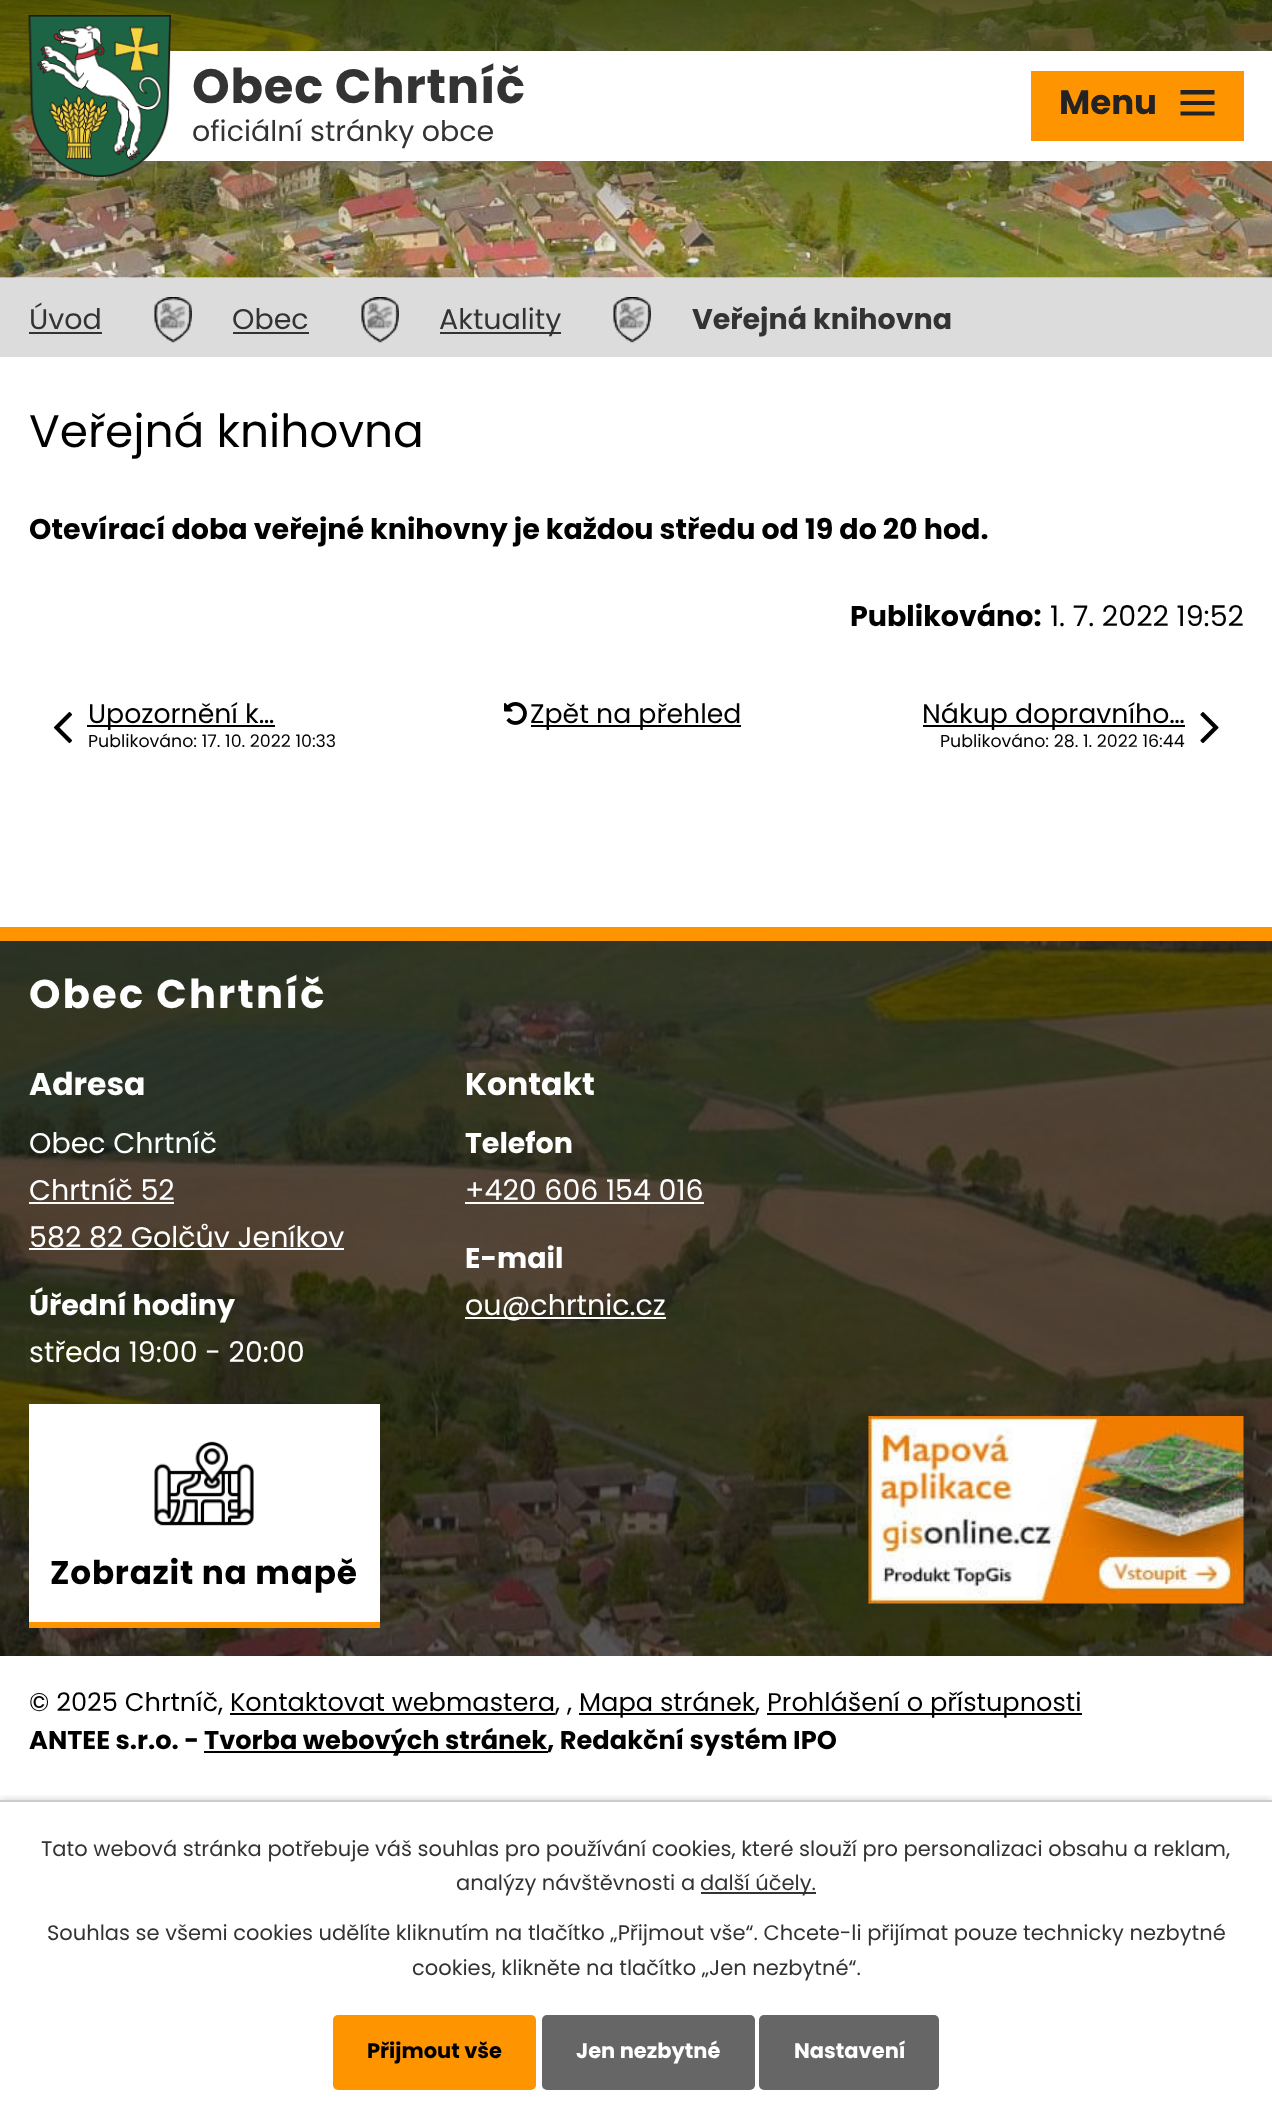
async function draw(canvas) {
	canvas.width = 1272;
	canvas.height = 2118;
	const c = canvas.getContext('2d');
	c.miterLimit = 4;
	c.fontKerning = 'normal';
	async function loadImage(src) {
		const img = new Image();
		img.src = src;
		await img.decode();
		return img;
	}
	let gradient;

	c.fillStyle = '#fff';
	c.fillRect(0, 0, 1272, 2118);
	c.drawImage(await loadImage('img1.png'), 0, 0, 1272, 278);
	gradient = c.createLinearGradient(636, 0, 636, 278);
	gradient.addColorStop(0, '#242e00b8');
	gradient.addColorStop(1, '#242e0000');
	c.fillStyle = gradient;
	c.fillRect(0, 0, 1272, 270);
	c.fillStyle = '#fff';
	c.fillRect(142, 51, 1130, 110);
	c.drawImage(await loadImage('img2.png'), 28, 15, 143, 162);
	c.letterSpacing = '0.75px';
	c.font = 'bold 48px Poppins';
	c.fillStyle = '#333';
	c.fillText('Obec Chrtníč', 192, 103);
	c.letterSpacing = '0px';
	c.font = '28.5px Poppins';
	c.fillText('oficiální stránky obce', 192, 141);
	c.fillStyle = '#fe9400';
	c.fillRect(1031, 71, 213, 70);
	c.font = 'bold 34px Poppins';
	c.fillStyle = '#232325';
	c.fillText('Menu', 1059, 114);
	c.beginPath();
	c.moveTo(1180.5, 115.5);
	c.lineTo(1180.5, 111.5);
	c.lineTo(1214.5, 111.5);
	c.lineTo(1214.5, 115.5);
	c.closePath();
	c.moveTo(1180.5, 90);
	c.lineTo(1214.5, 90);
	c.lineTo(1214.5, 94.5);
	c.lineTo(1180.5, 94.5);
	c.closePath();
	c.moveTo(1180.5, 105);
	c.lineTo(1180.5, 101);
	c.lineTo(1214.5, 101);
	c.lineTo(1214.5, 105);
	c.closePath();
	c.fill();
	c.fillStyle = '#dcdcdc';
	c.fillRect(0, 278, 1272, 79);
	c.font = '28.5px Poppins';
	c.fillStyle = '#333';
	c.fillText('Úvod', 29, 329);
	c.fillRect(29, 332, 73, 2);
	c.drawImage(await loadImage('img3.png'), 154, 297, 38, 46);
	c.fillText('Obec', 232, 329);
	c.fillRect(233, 332, 76, 2);
	c.drawImage(await loadImage('img4.png'), 361, 297, 38, 46);
	c.fillRect(440, 332, 121, 2);
	c.fillText('Aktuality', 439, 329);
	c.drawImage(await loadImage('img4.png'), 613, 297, 38, 46);
	c.font = 'bold 28.5px Poppins';
	c.fillText('Veřejná knihovna', 692, 329);
	c.font = '45.5px Poppins';
	c.fillStyle = '#000';
	c.fillText('Veřejná knihovna', 29, 447);
	c.font = 'bold 28.5px Poppins';
	c.fillText('Otevírací doba veřejné knihovny je každou středu od 19 do 20 hod.', 29, 539);
	c.fillText('Publikováno:', 850, 626);
	c.font = '28.5px Poppins';
	c.fillText('1. 7. 2022 19:52', 1050, 626);
	c.drawImage(await loadImage('img5.png'), 53, 712, 19, 32);
	c.fillRect(87, 725, 188, 2);
	c.font = '26.75px Poppins';
	c.fillText('Upozornění k…', 88, 723);
	c.font = '17.4px Poppins';
	c.fillText('Publikováno: 17. 10. 2022 10:33', 88, 747);
	c.drawImage(await loadImage('img6.png'), 504, 702, 23, 23);
	c.fillRect(531, 725, 210, 2);
	c.font = '26.75px Poppins';
	c.fillText('Zpět na přehled', 530, 723);
	c.fillRect(923, 725, 262, 2);
	c.fillText('Nákup dopravního…', 922, 723);
	c.font = '17.4px Poppins';
	c.fillText('Publikováno: 28. 1. 2022 16:44', 940, 747);
	c.drawImage(await loadImage('img7.png'), 1200, 712, 19, 32);
	c.drawImage(await loadImage('img8.png'), 0, 941, 1272, 715);
	c.fillStyle = '#fe9400';
	c.fillRect(0, 927, 1272, 14);
	c.letterSpacing = '2.25px';
	c.font = 'bold 40px Poppins';
	c.fillStyle = '#fff';
	c.fillText('Obec Chrtníč', 29, 1008);
	c.letterSpacing = '0px';
	c.font = 'bold 31.5px Poppins';
	c.fillText('Adresa', 29, 1095);
	c.font = '28.5px Poppins';
	c.fillText('Obec Chrtníč', 29, 1153);
	c.fillText('Chrtníč 52', 29, 1200);
	c.fillRect(29, 1202, 145, 2);
	c.fillText('582 82 Golčův Jeníkov', 29, 1247);
	c.fillRect(29, 1248, 315, 2);
	c.font = 'bold 28.5px Poppins';
	c.fillText('Úřední hodiny', 29, 1315);
	c.font = '28.5px Poppins';
	c.fillText('středa 19:00 - 20:00', 29, 1362);
	c.font = 'bold 31.5px Poppins';
	c.fillText('Kontakt', 465, 1095);
	c.font = 'bold 28.5px Poppins';
	c.fillText('Telefon', 465, 1153);
	c.font = '28.5px Poppins';
	c.fillText('+420 606 154 016', 465, 1200);
	c.fillRect(465, 1202, 239, 2);
	c.font = 'bold 28.5px Poppins';
	c.fillText('E-mail', 465, 1268);
	c.fillRect(465, 1317, 201, 2);
	c.font = '28.5px Poppins';
	c.fillText('ou@chrtnic.cz', 465, 1315);
	c.fillRect(29, 1404, 351, 218);
	c.drawImage(await loadImage('img9.png'), 154, 1441, 100, 85);
	c.letterSpacing = '0.75px';
	c.font = 'bold 32.75px Poppins';
	c.fillStyle = '#000';
	c.fillText('Zobrazit na mapě', 50, 1584);
	c.fillStyle = '#fe9400';
	c.fillRect(29, 1622, 351, 6);
	c.drawImage(await loadImage('img10.png'), 868, 1416, 376, 188);
	c.letterSpacing = '0px';
	c.font = '25.65px Poppins';
	c.fillStyle = '#000';
	c.fillText('© 2025 Chrtníč, Kontaktovat webmastera', 29, 1711);
	c.fillRect(230, 1713, 325, 2);
	c.fillText(', ,', 555, 1711);
	c.fillRect(579, 1713, 176, 2);
	c.fillText('Mapa stránek,', 579, 1711);
	c.fillRect(767, 1713, 315, 2);
	c.fillText('Prohlášení o přístupnosti', 767, 1711);
	c.font = 'bold 25.65px Poppins';
	c.fillText('ANTEE s.r.o. -', 29, 1749);
	c.fillRect(204, 1751, 344, 2);
	c.fillText('Tvorba webových stránek, Redakční systém IPO', 204, 1749);
	c.save();
	c.beginPath();
	c.rect(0, 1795, 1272, 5);
	c.clip();
	c.fillStyle = '#00000033';
	c.filter = 'blur(4px)';
	c.beginPath();
	c.rect(0, 1800, 1272, 318);
	c.fill();
	c.filter = 'none';
	c.restore();
	c.fillStyle = '#ccc';
	c.fillRect(0, 1800, 1272, 2);
	c.font = '21px Poppins';
	c.fillStyle = '#333';
	c.fillText('Tato webová stránka potřebuje váš souhlas pro používání cookies, které slouží pro personalizaci obsahu a reklam,', 41, 1856);
	c.fillText('analýzy návštěvnosti a', 456, 1890);
	c.fillRect(701, 1892, 115, 2);
	for (const [text, x, y] of [
		['další účely.', 700, 1890],
		['Souhlas se všemi cookies udělíte kliknutím na tlačítko „Přijmout vše“. Chcete-li přijímat pouze technicky nezbytné', 47, 1940],
		['cookies, klikněte na tlačítko „Jen nezbytné“.', 412, 1975],
	]) {
		c.fillText(text, x, y);
	}
	c.fillStyle = '#fe9400';
	c.beginPath();
	c.roundRect(333, 2015, 203, 75, 5);
	c.fill();
	c.font = 'bold 21px Poppins';
	c.fillStyle = '#000';
	c.fillText('Přijmout vše', 367, 2058);
	c.fillStyle = '#666';
	c.beginPath();
	c.roundRect(542, 2015, 213, 75, 5);
	c.fill();
	c.fillStyle = '#fff';
	c.fillText('Jen nezbytné', 576, 2058);
	c.fillStyle = '#666';
	c.beginPath();
	c.roundRect(759, 2015, 180, 75, 5);
	c.fill();
	c.fillStyle = '#fff';
	c.fillText('Nastavení', 794, 2058);
}

draw(document.querySelector('canvas'));
